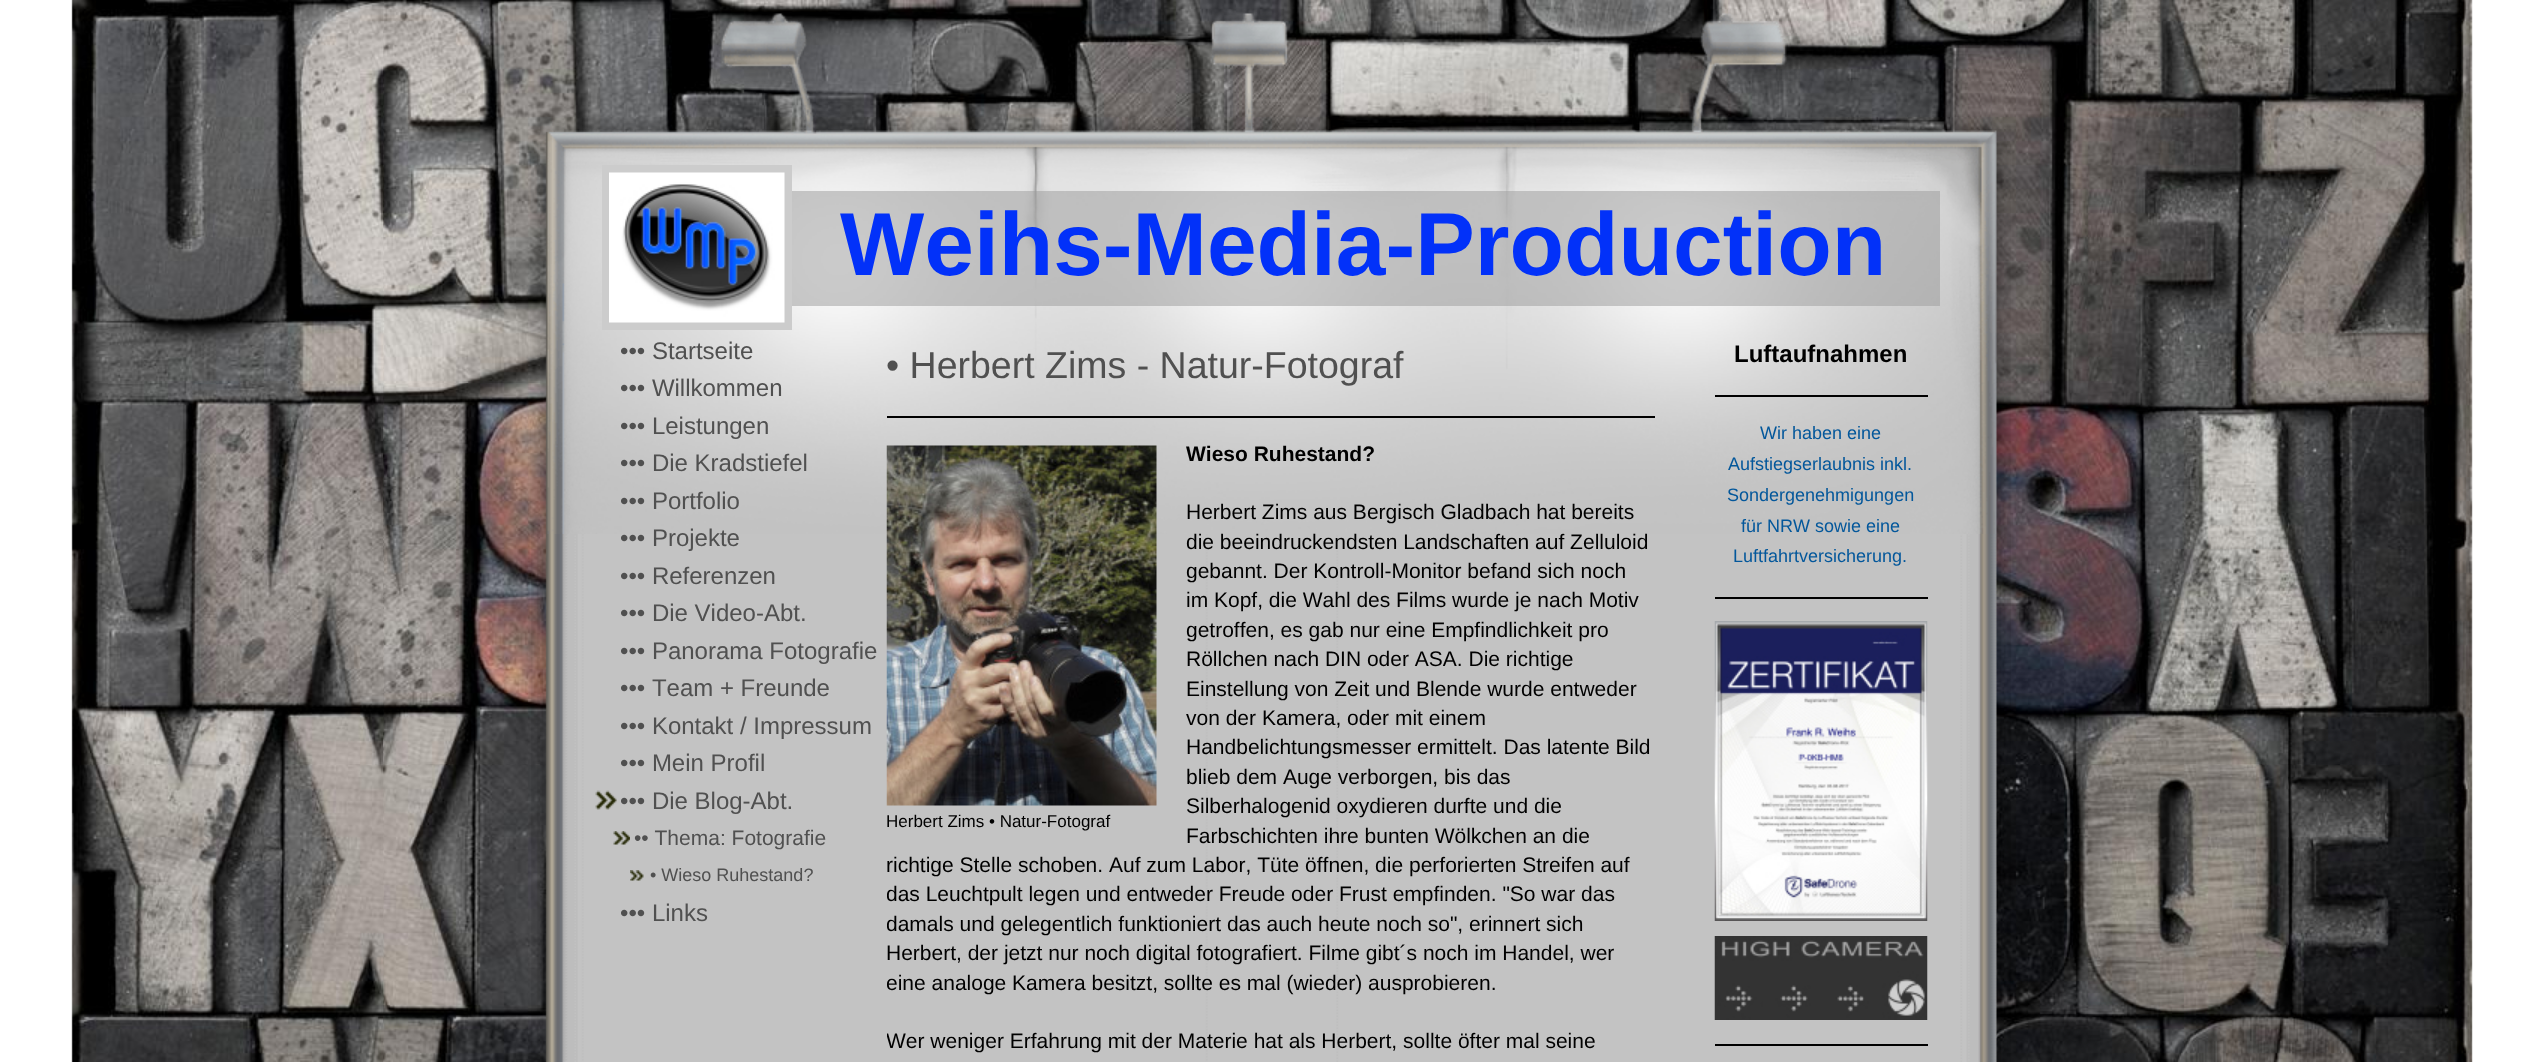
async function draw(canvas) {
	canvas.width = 2542;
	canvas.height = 1062;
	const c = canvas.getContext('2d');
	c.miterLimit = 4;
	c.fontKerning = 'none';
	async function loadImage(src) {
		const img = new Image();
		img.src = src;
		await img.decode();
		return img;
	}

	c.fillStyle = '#fff';
	c.fillRect(0, 0, 2542, 1062);
	c.drawImage(await loadImage('img1.png'), 71, 0, 2402, 1062);
	c.drawImage(await loadImage('img2.png'), 530, 8, 1481, 526);
	c.strokeStyle = '#ccc';
	c.lineWidth = 8;
	c.strokeRect(606, 169, 182, 157);
	c.drawImage(await loadImage('img3.png'), 609, 172, 176, 151);
	c.fillStyle = '#99999980';
	c.fillRect(792, 191, 1148, 115);
	c.font = 'bold 89.25px Liberation Sans';
	c.fillStyle = '#0231f9';
	c.fillText('Weihs-Media-Production', 840, 275);
	c.drawImage(await loadImage('img4.png'), 531, 534, 1480, 528);
	c.font = '24px Liberation Sans';
	c.fillStyle = '#505050';
	for (const [text, x, y] of [
		['••• Startseite', 620, 359],
		['••• Willkommen', 620, 396],
		['••• Leistungen', 620, 434],
		['••• Die Kradstiefel', 620, 471],
		['••• Portfolio', 620, 509],
		['••• Projekte', 620, 546],
		['••• Referenzen', 620, 584],
		['••• Die Video-Abt.', 620, 621],
		['••• Panorama Fotografie', 620, 659],
		['••• Team + Freunde', 620, 696],
		['••• Kontakt / Impressum', 620, 734],
		['••• Mein Profil', 620, 771],
	]) {
		c.fillText(text, x, y);
	}
	c.drawImage(await loadImage('img5.png'), 595, 790, 22, 20);
	c.fillText('••• Die Blog-Abt.', 620, 809);
	c.drawImage(await loadImage('img6.png'), 613, 831, 17, 14);
	c.font = '21px Liberation Sans';
	c.fillText('•• Thema: Fotografie', 634, 845);
	c.drawImage(await loadImage('img7.png'), 630, 870, 14, 11);
	c.font = '18px Liberation Sans';
	c.fillText('• Wieso Ruhestand?', 650, 881);
	c.font = '24px Liberation Sans';
	c.fillText('••• Links', 620, 921);
	c.font = '37.5px Liberation Sans';
	c.fillText('• Herbert Zims - Natur-Fotograf', 886, 378);
	c.fillStyle = '#000';
	c.fillRect(887, 416, 768, 2);
	c.font = 'bold 21px Liberation Sans';
	c.fillText('Wieso Ruhestand?', 1186, 461);
	c.font = '21px Liberation Sans';
	for (const [text, x, y] of [
		['Herbert Zims aus Bergisch Gladbach hat bereits', 1186, 519],
		['die beeindruckendsten Landschaften auf Zelluloid', 1186, 549],
		['gebannt. Der Kontroll-Monitor befand sich noch', 1186, 578],
		['im Kopf, die Wahl des Films wurde je nach Motiv', 1186, 607],
		['getroffen, es gab nur eine Empfindlichkeit pro', 1186, 637],
		['Röllchen nach DIN oder ASA. Die richtige', 1186, 666],
		['Einstellung von Zeit und Blende wurde entweder', 1186, 696],
		['von der Kamera, oder mit einem', 1186, 725],
		['Handbelichtungsmesser ermittelt. Das latente Bild', 1186, 754],
		['blieb dem Auge verborgen, bis das', 1186, 784],
		['Silberhalogenid oxydieren durfte und die', 1186, 813],
		['Farbschichten ihre bunten Wölkchen an die', 1186, 843],
		['richtige Stelle schoben. Auf zum Labor, Tüte öffnen, die perforierten Streifen auf', 886, 872],
	]) {
		c.fillText(text, x, y);
	}
	c.save();
	c.beginPath();
	c.rect(887, 440, 768, 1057);
	c.clip();
	c.fillText('das Leuchtpult legen und entweder Freude oder Frust empfinden. "So war das', 886, 901);
	c.fillText('damals und gelegentlich funktioniert das auch heute noch so", erinnert sich', 886, 931);
	c.restore();
	c.fillText('Herbert, der jetzt nur noch digital fotografiert. Filme gibt´s noch im Handel, wer', 886, 960);
	c.save();
	c.beginPath();
	c.rect(887, 440, 768, 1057);
	c.clip();
	c.fillText('eine analoge Kamera besitzt, sollte es mal (wieder) ausprobieren.', 886, 990);
	c.fillText('Wer weniger Erfahrung mit der Materie hat als Herbert, sollte öfter mal seine', 886, 1048);
	c.restore();
	c.drawImage(await loadImage('img8.png'), 886, 445, 271, 361);
	c.font = '17px Liberation Sans';
	c.fillText('Herbert Zims • Natur-Fotograf', 886, 827);
	c.font = 'bold 24px Liberation Sans';
	c.fillText('Luftaufnahmen', 1734, 362);
	c.fillRect(1715, 395, 213, 2);
	c.font = '18px Liberation Sans';
	c.fillStyle = '#03579b';
	for (const [text, x, y] of [
		['Wir haben eine', 1760, 439],
		['Aufstiegserlaubnis inkl.', 1728, 470],
		['Sondergenehmigungen', 1727, 501],
		['für NRW sowie eine', 1741, 532],
		['Luftfahrtversicherung.', 1733, 562],
	]) {
		c.fillText(text, x, y);
	}
	c.fillStyle = '#000';
	c.fillRect(1715, 597, 213, 2);
	c.drawImage(await loadImage('img9.png'), 1714, 621, 214, 300);
	c.drawImage(await loadImage('img10.png'), 1714, 936, 214, 84);
	c.fillRect(1715, 1044, 213, 2);
}

draw(document.querySelector('canvas'));
